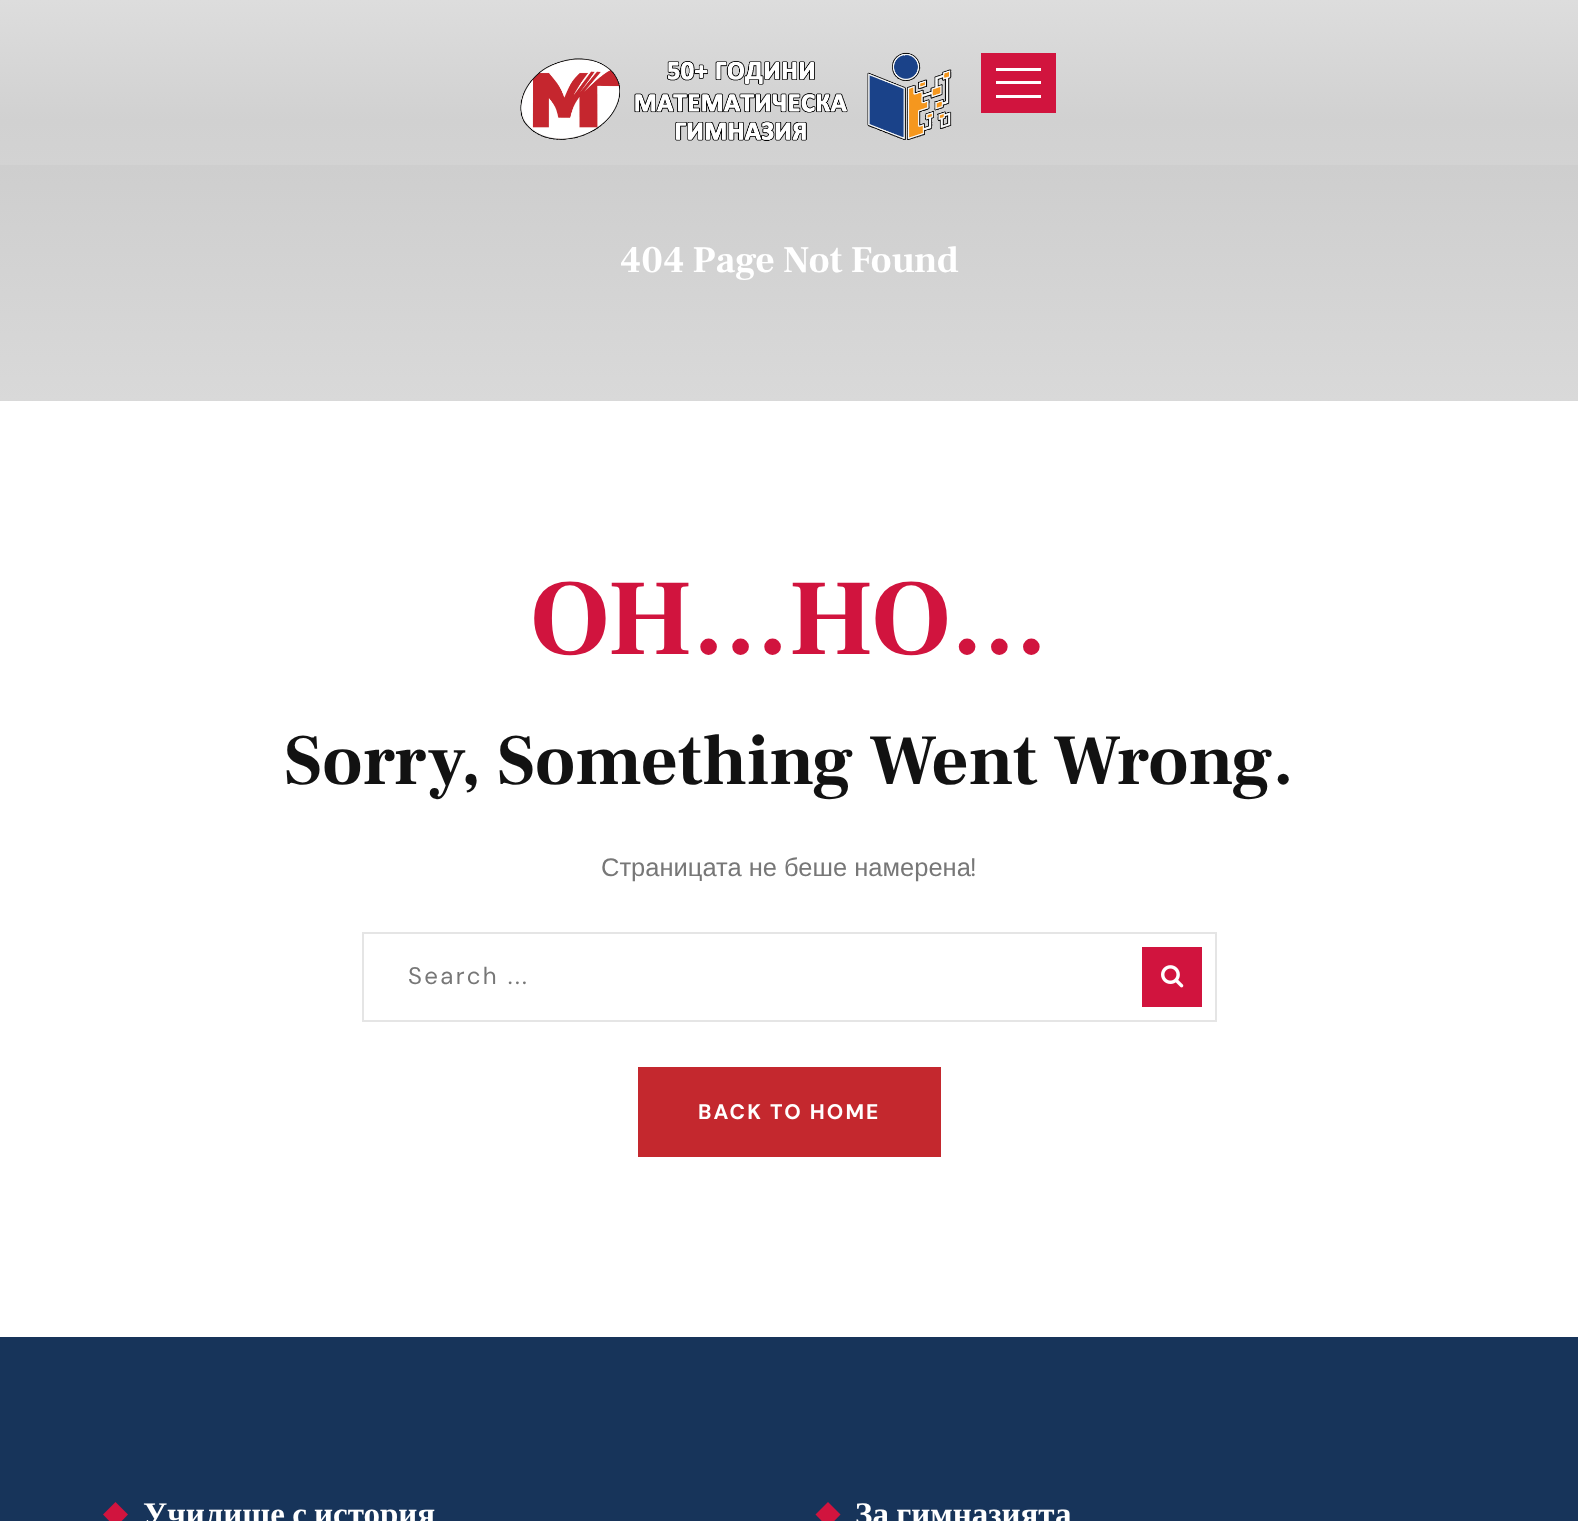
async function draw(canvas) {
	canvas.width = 1578;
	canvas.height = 1521;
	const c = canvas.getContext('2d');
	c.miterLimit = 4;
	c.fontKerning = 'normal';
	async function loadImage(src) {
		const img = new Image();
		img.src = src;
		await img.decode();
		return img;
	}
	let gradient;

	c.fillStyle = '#fff';
	c.fillRect(0, 0, 1578, 1521);
	gradient = c.createLinearGradient(789, 401, 789, 0);
	gradient.addColorStop(0, '#ddd');
	gradient.addColorStop(0.7, '#d1d1d1');
	gradient.addColorStop(1, '#ddd');
	c.fillStyle = gradient;
	c.fillRect(0, 0, 1578, 165);
	c.drawImage(await loadImage('img1.png'), 520, 52, 432, 89);
	for (const [x, y, w, h, color] of [
		[981, 53, 75, 60, '#d1143e'],
		[996, 68, 45, 3, '#fff'],
		[996, 81, 45, 3, '#fff'],
		[996, 95, 45, 3, '#fff'],
	]) {
		c.fillStyle = color;
		c.fillRect(x, y, w, h);
	}
	gradient = c.createLinearGradient(789, 401, 789, 0);
	gradient.addColorStop(0, '#d9d9d9');
	gradient.addColorStop(0.7, '#ccc');
	gradient.addColorStop(1, '#d9d9d9');
	c.fillStyle = gradient;
	c.fillRect(0, 165, 1578, 236);
	c.font = 'bold 37.5px Frank Ruhl Libre';
	c.fillStyle = '#fff';
	c.fillText('404 Page Not Found', 620, 272);
	c.font = 'bold 108px Frank Ruhl Libre';
	c.fillStyle = '#d1143e';
	c.fillText('OH...HO...', 530, 654);
	c.font = 'bold 72px Frank Ruhl Libre';
	c.fillStyle = '#121212';
	c.fillText('Sorry, Something Went Wrong.', 284, 784);
	c.font = '25.5px Liberation Sans';
	c.fillStyle = '#777';
	c.fillText('Страницата не беше намерена', 601, 876);
	c.font = '25.5px DM Sans';
	c.fillText('!', 970, 876);
	c.strokeStyle = '#e5e5e5';
	c.lineWidth = 2;
	c.strokeRect(363, 933, 853, 88);
	c.letterSpacing = '2.4px';
	c.font = '24px DM Sans';
	c.fillText('Search ...', 408, 984);
	c.fillStyle = '#d1143e';
	c.fillRect(1142, 947, 60, 60);
	c.drawImage(await loadImage('img2.png'), 1161, 965, 23, 23);
	c.fillStyle = '#c4282e';
	c.fillRect(638, 1067, 303, 90);
	c.letterSpacing = '2.1px';
	c.font = 'bold 21px DM Sans';
	c.fillStyle = '#fff';
	c.fillText('BACK TO HOME', 698, 1119);
	c.fillStyle = '#17345a';
	c.fillRect(0, 1337, 1578, 184);
	c.fillStyle = '#d1143e';
	c.beginPath();
	c.moveTo(103, 1514.5);
	c.lineTo(115.5, 1502);
	c.lineTo(128, 1514.5);
	c.lineTo(115.5, 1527.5);
	c.closePath();
	c.fill();
	c.letterSpacing = '0px';
	c.wordSpacing = '-1px';
	c.font = 'bold 33px Liberation Serif';
	c.fillStyle = '#fff';
	c.fillText('Училище с история', 143, 1525);
	c.fillStyle = '#d1143e';
	c.beginPath();
	c.moveTo(815.5, 1514.5);
	c.lineTo(828, 1502);
	c.lineTo(840.5, 1514.5);
	c.lineTo(828, 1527.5);
	c.closePath();
	c.fill();
	c.fillStyle = '#fff';
	c.fillText('За гимназията', 855, 1525);
}

draw(document.querySelector('canvas'));
